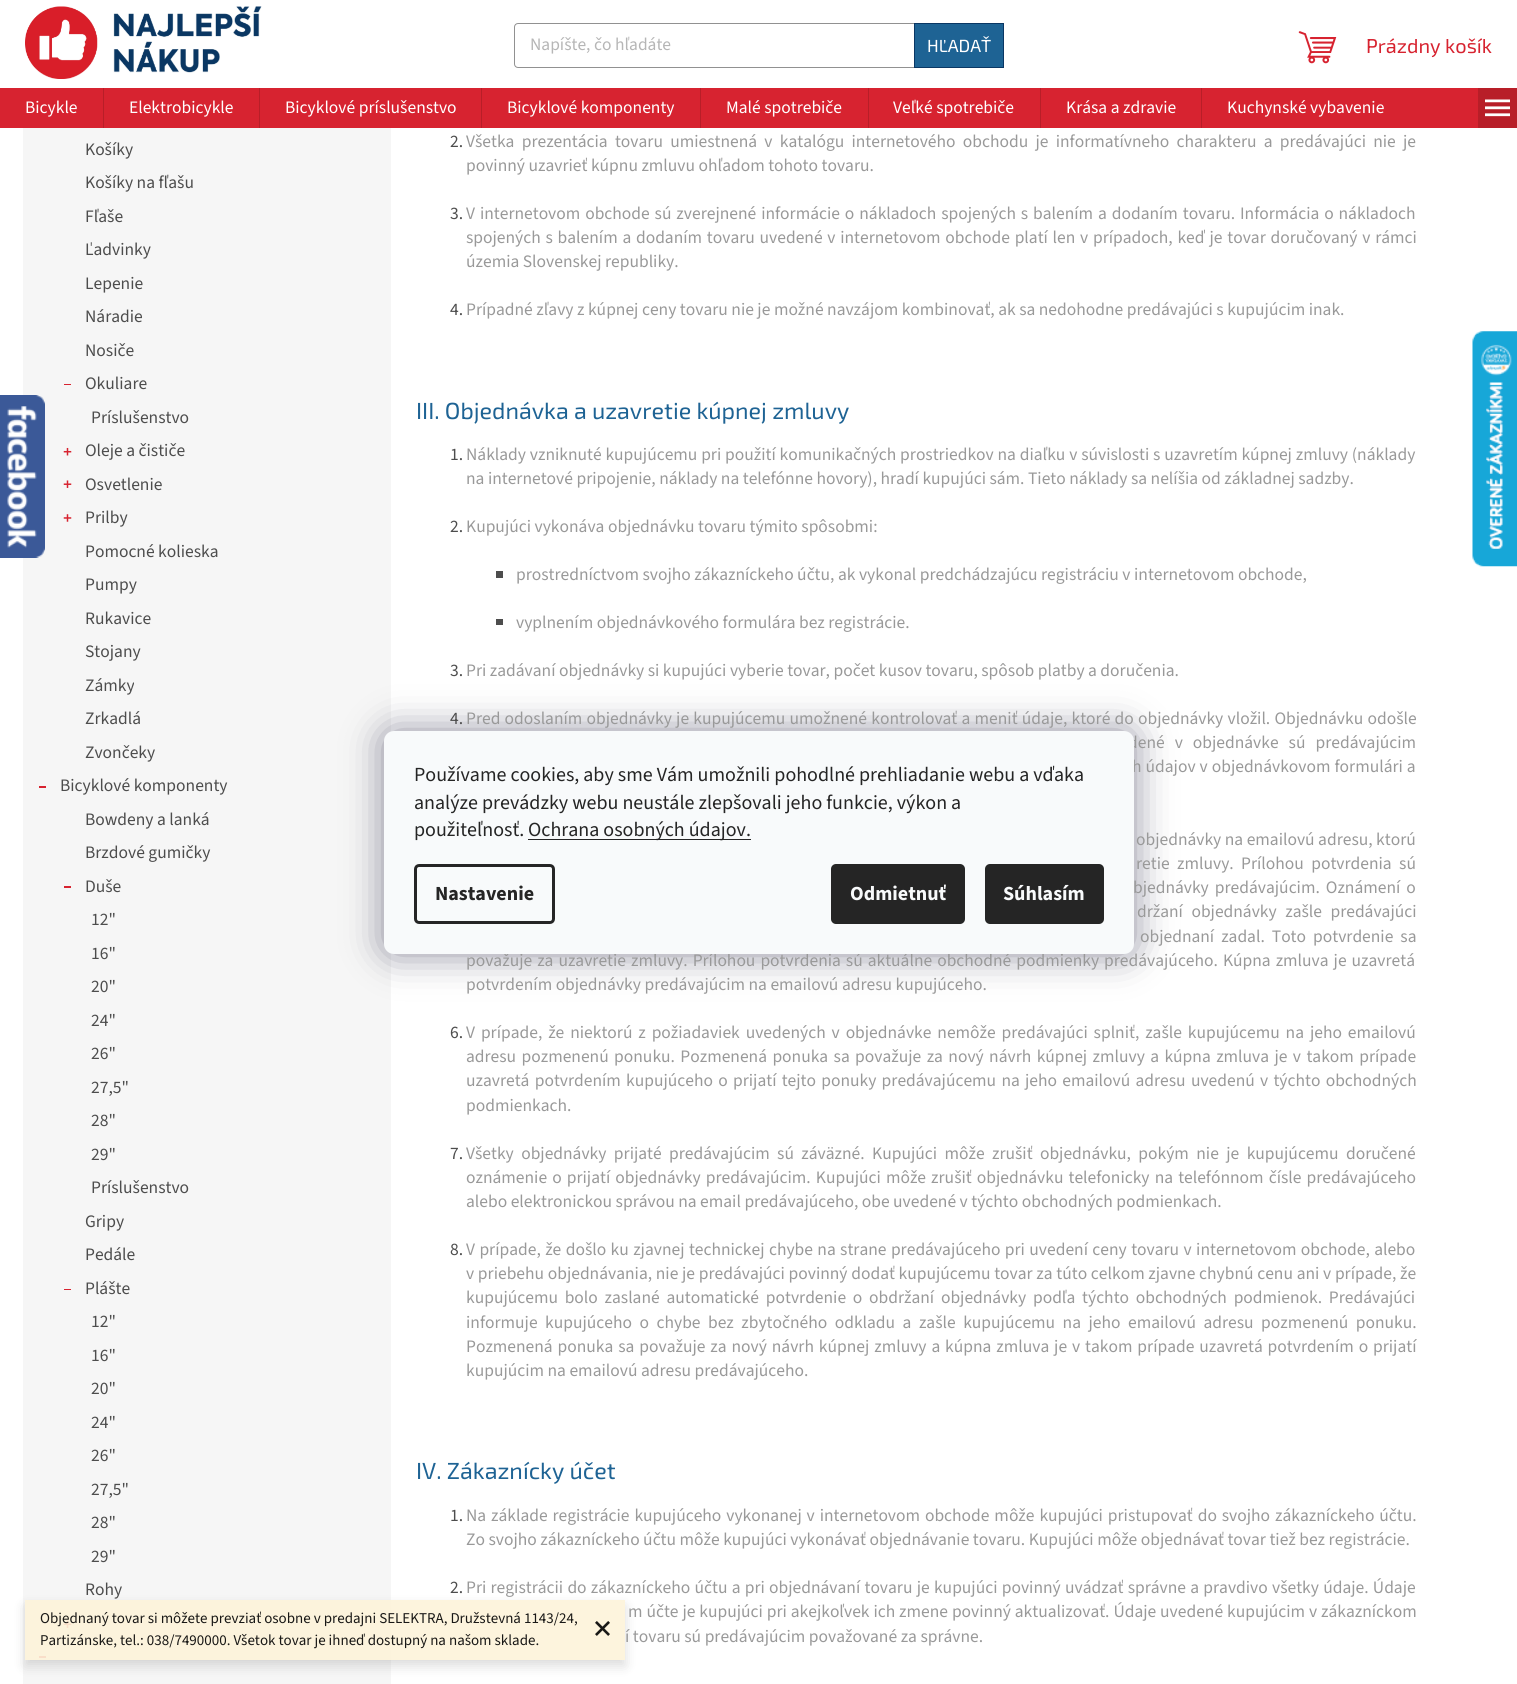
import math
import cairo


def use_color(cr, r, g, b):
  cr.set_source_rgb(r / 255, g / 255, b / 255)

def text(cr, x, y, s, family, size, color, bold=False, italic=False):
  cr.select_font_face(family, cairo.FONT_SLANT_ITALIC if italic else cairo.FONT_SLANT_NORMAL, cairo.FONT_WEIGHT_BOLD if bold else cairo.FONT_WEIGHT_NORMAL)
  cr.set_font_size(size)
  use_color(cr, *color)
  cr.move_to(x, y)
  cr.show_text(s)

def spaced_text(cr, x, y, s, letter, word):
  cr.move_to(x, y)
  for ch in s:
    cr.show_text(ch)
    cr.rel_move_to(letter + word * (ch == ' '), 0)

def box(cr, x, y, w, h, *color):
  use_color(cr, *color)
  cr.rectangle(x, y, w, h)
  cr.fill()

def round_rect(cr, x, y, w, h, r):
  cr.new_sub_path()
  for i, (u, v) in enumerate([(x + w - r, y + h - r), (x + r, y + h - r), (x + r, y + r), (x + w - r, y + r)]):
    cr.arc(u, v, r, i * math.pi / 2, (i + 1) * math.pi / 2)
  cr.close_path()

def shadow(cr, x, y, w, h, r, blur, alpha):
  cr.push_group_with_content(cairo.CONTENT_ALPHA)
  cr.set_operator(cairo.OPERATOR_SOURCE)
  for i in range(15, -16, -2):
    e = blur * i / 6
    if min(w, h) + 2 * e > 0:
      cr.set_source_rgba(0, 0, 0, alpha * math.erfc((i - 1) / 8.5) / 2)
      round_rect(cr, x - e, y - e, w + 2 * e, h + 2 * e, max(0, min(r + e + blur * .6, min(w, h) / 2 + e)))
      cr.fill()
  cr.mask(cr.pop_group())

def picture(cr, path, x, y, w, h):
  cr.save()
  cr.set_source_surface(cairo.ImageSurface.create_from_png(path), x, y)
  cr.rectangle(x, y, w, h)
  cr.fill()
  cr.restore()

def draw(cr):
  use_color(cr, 255, 255, 255)
  cr.paint()
  box(cr, 23, 128, 368, 1556, 246, 246, 246)
  picture(cr, "img_01.png", 0, 395, 45, 163)
  picture(cr, "img_02.png", 25, 6, 237, 73)
  round_rect(cr, 514.5, 23.5, 489, 44, 3.5)
  use_color(cr, 145, 145, 145)
  cr.set_line_width(1)
  cr.stroke()
  use_color(cr, 30, 99, 148)
  cr.rectangle(914.5, 23.5, 89, 44)
  cr.fill_preserve()
  use_color(cr, 10, 55, 100)
  cr.stroke()
  picture(cr, "img_03.png", 1298, 31, 39, 33)
  box(cr, 0, 88, 1478, 40, 215, 35, 48)
  box(cr, 103, 88, 1, 40, 184, 30, 40)
  box(cr, 259, 88, 1, 40, 184, 30, 40)
  box(cr, 481, 88, 1, 40, 184, 30, 40)
  box(cr, 700, 88, 1, 40, 184, 30, 40)
  box(cr, 868, 88, 1, 40, 184, 30, 40)
  box(cr, 1040, 88, 1, 40, 184, 30, 40)
  box(cr, 1201, 88, 1, 40, 184, 30, 40)
  box(cr, 1478, 88, 39, 40, 184, 30, 40)
  picture(cr, "img_04.png", 1485, 99, 25, 18)
  box(cr, 64, 384, 7, 1, 215, 35, 48)
  picture(cr, "img_05.png", 63, 447, 9, 9)
  picture(cr, "img_06.png", 63, 480, 9, 8)
  picture(cr, "img_07.png", 63, 514, 9, 8)
  box(cr, 39, 786, 7, 2, 215, 35, 48)
  box(cr, 64, 886, 7, 2, 215, 35, 48)
  box(cr, 64, 1289, 7, 1, 215, 35, 48)
  picture(cr, "img_06.png", 63, 1620, 9, 8)
  box(cr, 39, 1656, 7, 2, 215, 35, 48)
  box(cr, 496, 571, 7, 7, 77, 77, 77)
  box(cr, 496, 619, 7, 6, 77, 77, 77)
  cr.save()
  cr.set_fill_rule(cairo.FILL_RULE_EVEN_ODD)
  cr.new_path()
  cr.move_to(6, 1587)
  cr.line_to(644, 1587)
  cr.line_to(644, 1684)
  cr.line_to(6, 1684)
  cr.close_path()
  cr.move_to(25, 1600)
  cr.line_to(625, 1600)
  cr.line_to(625, 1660)
  cr.line_to(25, 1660)
  cr.close_path()
  cr.clip()
  use_color(cr, 0, 0, 0)
  shadow(cr, 25, 1606, 600, 60, 0, 6, 0.14)
  cr.restore()
  cr.set_source_rgba(0.992, 0.953, 0.855, 0.9)
  cr.rectangle(25, 1600, 600, 60)
  cr.fill()
  picture(cr, "img_08.png", 595, 1621, 15, 15)
  picture(cr, "img_09.png", 1472, 331, 45, 236)
  use_color(cr, 27, 25, 57)
  shadow(cr, 384, 731, 750, 223, 10, 19, 0.5)
  text(cr, 530, 50, "Napíšte, čo hľadáte", "Source Sans 3", 17.5, (182, 182, 182))
  text(cr, 927, 52, "HĽADAŤ", "Exo 2", 17.5, (255, 255, 255))
  text(cr, 1366, 53, "Prázdny košík", "Exo 2", 20, (215, 35, 48))
  text(cr, 25, 113, "Bicykle", "Source Sans 3", 17.5, (255, 255, 255))
  text(cr, 129, 113, "Elektrobicykle", "Source Sans 3", 17.5, (255, 255, 255))
  text(cr, 285, 113, "Bicyklové príslušenstvo", "Source Sans 3", 17.5, (255, 255, 255))
  text(cr, 507, 113, "Bicyklové komponenty", "Source Sans 3", 17.5, (255, 255, 255))
  text(cr, 726, 113, "Malé spotrebiče", "Source Sans 3", 17.5, (255, 255, 255))
  text(cr, 893, 113, "Veľké spotrebiče", "Source Sans 3", 17.5, (255, 255, 255))
  text(cr, 1066, 113, "Krása a zdravie", "Source Sans 3", 17.5, (255, 255, 255))
  text(cr, 1227, 113, "Kuchynské vybavenie", "Source Sans 3", 17.5, (255, 255, 255))
  text(cr, 85, 155, "Košíky", "Source Sans 3", 17.5, (77, 77, 77))
  text(cr, 85, 188, "Košíky na fľašu", "Source Sans 3", 17.5, (77, 77, 77))
  text(cr, 85, 222, "Fľaše", "Source Sans 3", 17.5, (77, 77, 77))
  text(cr, 85, 255, "Ľadvinky", "Source Sans 3", 17.5, (77, 77, 77))
  text(cr, 85, 289, "Lepenie", "Source Sans 3", 17.5, (77, 77, 77))
  text(cr, 85, 322, "Náradie", "Source Sans 3", 17.5, (77, 77, 77))
  text(cr, 85, 356, "Nosiče", "Source Sans 3", 17.5, (77, 77, 77))
  text(cr, 85, 389, "Okuliare", "Source Sans 3", 17.5, (77, 77, 77))
  text(cr, 91, 423, "Príslušenstvo", "Source Sans 3", 17.5, (77, 77, 77))
  text(cr, 85, 456, "Oleje a čističe", "Source Sans 3", 17.5, (77, 77, 77))
  text(cr, 85, 490, "Osvetlenie", "Source Sans 3", 17.5, (77, 77, 77))
  text(cr, 85, 523, "Prilby", "Source Sans 3", 17.5, (77, 77, 77))
  text(cr, 85, 557, "Pomocné kolieska", "Source Sans 3", 17.5, (77, 77, 77))
  text(cr, 85, 590, "Pumpy", "Source Sans 3", 17.5, (77, 77, 77))
  text(cr, 85, 624, "Rukavice", "Source Sans 3", 17.5, (77, 77, 77))
  text(cr, 85, 657, "Stojany", "Source Sans 3", 17.5, (77, 77, 77))
  text(cr, 85, 691, "Zámky", "Source Sans 3", 17.5, (77, 77, 77))
  text(cr, 85, 724, "Zrkadlá", "Source Sans 3", 17.5, (77, 77, 77))
  text(cr, 85, 758, "Zvončeky", "Source Sans 3", 17.5, (77, 77, 77))
  text(cr, 60, 791, "Bicyklové komponenty", "Source Sans 3", 17.5, (77, 77, 77))
  text(cr, 85, 825, "Bowdeny a lanká", "Source Sans 3", 17.5, (77, 77, 77))
  text(cr, 85, 858, "Brzdové gumičky", "Source Sans 3", 17.5, (77, 77, 77))
  text(cr, 85, 892, "Duše", "Source Sans 3", 17.5, (77, 77, 77))
  text(cr, 91, 925, "12\"", "Source Sans 3", 17.5, (77, 77, 77))
  text(cr, 91, 959, "16\"", "Source Sans 3", 17.5, (77, 77, 77))
  text(cr, 91, 992, "20\"", "Source Sans 3", 17.5, (77, 77, 77))
  text(cr, 91, 1026, "24\"", "Source Sans 3", 17.5, (77, 77, 77))
  text(cr, 91, 1059, "26\"", "Source Sans 3", 17.5, (77, 77, 77))
  text(cr, 91, 1093, "27,5\"", "Source Sans 3", 17.5, (77, 77, 77))
  text(cr, 91, 1126, "28\"", "Source Sans 3", 17.5, (77, 77, 77))
  text(cr, 91, 1160, "29\"", "Source Sans 3", 17.5, (77, 77, 77))
  text(cr, 91, 1193, "Príslušenstvo", "Source Sans 3", 17.5, (77, 77, 77))
  text(cr, 85, 1227, "Gripy", "Source Sans 3", 17.5, (77, 77, 77))
  text(cr, 85, 1260, "Pedále", "Source Sans 3", 17.5, (77, 77, 77))
  text(cr, 85, 1294, "Plášte", "Source Sans 3", 17.5, (77, 77, 77))
  text(cr, 91, 1327, "12\"", "Source Sans 3", 17.5, (77, 77, 77))
  text(cr, 91, 1361, "16\"", "Source Sans 3", 17.5, (77, 77, 77))
  text(cr, 91, 1394, "20\"", "Source Sans 3", 17.5, (77, 77, 77))
  text(cr, 91, 1428, "24\"", "Source Sans 3", 17.5, (77, 77, 77))
  text(cr, 91, 1461, "26\"", "Source Sans 3", 17.5, (77, 77, 77))
  text(cr, 91, 1495, "27,5\"", "Source Sans 3", 17.5, (77, 77, 77))
  text(cr, 91, 1528, "28\"", "Source Sans 3", 17.5, (77, 77, 77))
  text(cr, 91, 1562, "29\"", "Source Sans 3", 17.5, (77, 77, 77))
  text(cr, 85, 1595, "Rohy", "Source Sans 3", 17.5, (77, 77, 77))
  text(cr, 450, 147, "2.", "Source Sans 3", 17.5, (77, 77, 77))
  use_color(cr, 153, 153, 153)
  spaced_text(cr, 466, 147, "Všetka prezentácia tovaru umiestnená v katalógu internetového obchodu je informatívneho charakteru a predávajúci nie je", 0, 3.75)
  text(cr, 466, 171, "povinný uzavrieť kúpnu zmluvu ohľadom tohoto tovaru.", "Source Sans 3", 17.5, (153, 153, 153))
  text(cr, 450, 219, "3.", "Source Sans 3", 17.5, (77, 77, 77))
  use_color(cr, 153, 153, 153)
  spaced_text(cr, 466, 219, "V internetovom obchode sú zverejnené informácie o nákladoch spojených s balením a dodaním tovaru. Informácia o nákladoch", 0, 1.4)
  spaced_text(cr, 466, 243, "spojených s balením a dodaním tovaru uvedené v internetovom obchode platí len v prípadoch, keď je tovar doručovaný v rámci", 0, 1.25)
  text(cr, 466, 267, "územia Slovenskej republiky.", "Source Sans 3", 17.5, (153, 153, 153))
  text(cr, 450, 315, "4.", "Source Sans 3", 17.5, (77, 77, 77))
  text(cr, 466, 315, "Prípadné zľavy z kúpnej ceny tovaru nie je možné navzájom kombinovať, ak sa nedohodne predávajúci s kupujúcim inak.", "Source Sans 3", 17.5, (153, 153, 153))
  text(cr, 416, 419, "III. Objednávka a uzavretie kúpnej zmluvy", "Exo 2", 23.3, (30, 99, 148))
  text(cr, 450, 460, "1.", "Source Sans 3", 17.5, (77, 77, 77))
  use_color(cr, 153, 153, 153)
  spaced_text(cr, 466, 460, "Náklady vzniknuté kupujúcemu pri použití komunikačných prostriedkov na diaľku v súvislosti s uzavretím kúpnej zmluvy (náklady", 0, 0.3)
  text(cr, 466, 484, "na internetové pripojenie, náklady na telefónne hovory), hradí kupujúci sám. Tieto náklady sa nelíšia od základnej sadzby.", "Source Sans 3", 17.5, (153, 153, 153))
  text(cr, 450, 532, "2.", "Source Sans 3", 17.5, (77, 77, 77))
  text(cr, 466, 532, "Kupujúci vykonáva objednávku tovaru týmito spôsobmi:", "Source Sans 3", 17.5, (153, 153, 153))
  text(cr, 516, 580, "prostredníctvom svojho zákazníckeho účtu, ak vykonal predchádzajúcu registráciu v internetovom obchode,", "Source Sans 3", 17.5, (153, 153, 153))
  text(cr, 516, 628, "vyplnením objednávkového formulára bez registrácie.", "Source Sans 3", 17.5, (153, 153, 153))
  text(cr, 450, 676, "3.", "Source Sans 3", 17.5, (77, 77, 77))
  text(cr, 466, 676, "Pri zadávaní objednávky si kupujúci vyberie tovar, počet kusov tovaru, spôsob platby a doručenia.", "Source Sans 3", 17.5, (153, 153, 153))
  text(cr, 450, 724, "4.", "Source Sans 3", 17.5, (77, 77, 77))
  use_color(cr, 153, 153, 153)
  spaced_text(cr, 466, 724, "Pred odoslaním objednávky je kupujúcemu umožnené kontrolovať a meniť údaje, ktoré do objednávky vložil. Objednávku odošle", 0, 0.75)
  spaced_text(cr, 1128, 748, "dené v objednávke sú predávajúcim", 0, 6.5)
  spaced_text(cr, 1132, 772, "h údajov v objednávkovom formulári a", 0, 0.5)
  text(cr, 1136, 845, "objednávky na emailovú adresu, ktorú", "Source Sans 3", 17.5, (153, 153, 153))
  spaced_text(cr, 1136, 869, "retie zmluvy. Prílohou potvrdenia sú", 0, 3.9)
  spaced_text(cr, 1133, 893, "bjednávky predávajúcim. Oznámení o", 0, 2.5)
  spaced_text(cr, 1137, 917, "držaní objednávky zašle predávajúci", 0, 5)
  spaced_text(cr, 1140, 942, "objednaní zadal. Toto potvrdenie sa", 0, 3.5)
  spaced_text(cr, 466, 966, "považuje za uzavretie zmluvy. Prílohou potvrdenia sú aktuálne obchodné podmienky predávajúceho. Kúpna zmluva je uzavretá", 0, 1.5)
  text(cr, 466, 990, "potvrdením objednávky predávajúcim na emailovú adresu kupujúceho.", "Source Sans 3", 17.5, (153, 153, 153))
  text(cr, 450, 1038, "6.", "Source Sans 3", 17.5, (77, 77, 77))
  use_color(cr, 153, 153, 153)
  spaced_text(cr, 466, 1038, "V prípade, že niektorú z požiadaviek uvedených v objednávke nemôže predávajúci splniť, zašle kupujúcemu na jeho emailovú", 0, 2.4)
  spaced_text(cr, 466, 1062, "adresu pozmenenú ponuku. Pozmenená ponuka sa považuje za nový návrh kúpnej zmluvy a kúpna zmluva je v takom prípade", 0, 1.9)
  spaced_text(cr, 466, 1086, "uzavretá potvrdením kupujúceho o prijatí tejto ponuky predávajúcemu na jeho emailovú adresu uvedenú v týchto obchodných", 0, 1.75)
  text(cr, 466, 1111, "podmienkach.", "Source Sans 3", 17.5, (153, 153, 153))
  text(cr, 450, 1159, "7.", "Source Sans 3", 17.5, (77, 77, 77))
  use_color(cr, 153, 153, 153)
  spaced_text(cr, 466, 1159, "Všetky objednávky prijaté predávajúcim sú záväzné. Kupujúci môže zrušiť objednávku, pokým nie je kupujúcemu doručené", 0, 3.9)
  spaced_text(cr, 466, 1183, "oznámenie o prijatí objednávky predávajúcim. Kupujúci môže zrušiť objednávku telefonicky na telefónnom čísle predávajúceho", 0, 1.6)
  text(cr, 466, 1207, "alebo elektronickou správou na email predávajúceho, obe uvedené v týchto obchodných podmienkach.", "Source Sans 3", 17.5, (153, 153, 153))
  text(cr, 450, 1255, "8.", "Source Sans 3", 17.5, (77, 77, 77))
  use_color(cr, 153, 153, 153)
  spaced_text(cr, 466, 1255, "V prípade, že došlo ku zjavnej technickej chybe na strane predávajúceho pri uvedení ceny tovaru v internetovom obchode, alebo", 0, 0.9)
  spaced_text(cr, 466, 1279, "v priebehu objednávania, nie je predávajúci povinný dodať kupujúcemu tovar za túto celkom zjavne chybnú cenu ani v prípade, že", 0, 0.2)
  spaced_text(cr, 466, 1303, "kupujúcemu bolo zaslané automatické potvrdenie o obdržaní objednávky podľa týchto obchodných podmienok. Predávajúci", 0, 3.25)
  spaced_text(cr, 466, 1328, "informuje kupujúceho o chybe bez zbytočného odkladu a zašle kupujúcemu na jeho emailovú adresu pozmenenú ponuku.", 0, 4)
  spaced_text(cr, 466, 1352, "Pozmenená ponuka sa považuje za nový návrh kúpnej zmluvy a kúpna zmluva je v takom prípade uzavretá potvrdením o prijatí", 0, 1.4)
  text(cr, 466, 1376, "kupujúcim na emailovú adresu predávajúceho.", "Source Sans 3", 17.5, (153, 153, 153))
  text(cr, 416, 1479, "IV. Zákaznícky účet", "Exo 2", 23.3, (30, 99, 148))
  text(cr, 450, 1521, "1.", "Source Sans 3", 17.5, (77, 77, 77))
  use_color(cr, 153, 153, 153)
  spaced_text(cr, 466, 1521, "Na základe registrácie kupujúceho vykonanej v internetovom obchode môže kupujúci pristupovať do svojho zákazníckeho účtu.", 0, 1.4)
  text(cr, 466, 1545, "Zo svojho zákazníckeho účtu môže kupujúci vykonávať objednávanie tovaru. Kupujúci môže objednávať tovar tiež bez registrácie.", "Source Sans 3", 17.5, (153, 153, 153))
  text(cr, 450, 1593, "2.", "Source Sans 3", 17.5, (77, 77, 77))
  use_color(cr, 153, 153, 153)
  spaced_text(cr, 466, 1593, "Pri registrácii do zákazníckeho účtu a pri objednávaní tovaru je kupujúci povinný uvádzať správne a pravdivo všetky údaje. Údaje", 0, 0.75)
  spaced_text(cr, 628, 1617, "m účte je kupujúci pri akejkoľvek ich zmene povinný aktualizovať. Údaje uvedené kupujúcim v zákazníckom", 0, 0.4)
  text(cr, 625, 1642, "í tovaru sú predávajúcim považované za správne.", "Source Sans 3", 17.5, (153, 153, 153))
  text(cr, 40, 1623, "Objednaný tovar si môžete prevziať osobne v predajni SELEKTRA, Družstevná 1143/24,", "Source Sans 3", 15, (25, 24, 22))
  text(cr, 40, 1645, "Partizánske, tel.: 038/7490000. Všetok tovar je ihneď dostupný na našom sklade.", "Source Sans 3", 15, (25, 24, 22))
  use_color(cr, 248, 250, 251)
  round_rect(cr, 384, 731, 750, 223, 10)
  cr.fill()
  text(cr, 414, 781, "Používame cookies, aby sme Vám umožnili pohodlné prehliadanie webu a vďaka", "Source Sans 3", 20, (37, 37, 37))
  text(cr, 414, 809, "analýze prevádzky webu neustále zlepšovali jeho funkcie, výkon a", "Source Sans 3", 20, (37, 37, 37))
  text(cr, 414, 836, "použiteľnosť.", "Source Sans 3", 20, (37, 37, 37))
  box(cr, 528, 839, 223, 1, 37, 37, 37)
  text(cr, 528, 836, "Ochrana osobných údajov.", "Source Sans 3", 20, (37, 37, 37))
  round_rect(cr, 415.5, 865.5, 138, 57, 3.5)
  cr.set_line_width(3)
  cr.stroke()
  text(cr, 435, 900, "Nastavenie", "Source Sans 3", 20, (37, 37, 37), bold=True)
  round_rect(cr, 831, 864, 134, 60, 5)
  cr.fill()
  text(cr, 850, 900, "Odmietnuť", "Source Sans 3", 20, (248, 250, 251), bold=True)
  use_color(cr, 37, 37, 37)
  round_rect(cr, 985, 864, 119, 60, 5)
  cr.fill()
  text(cr, 1003, 900, "Súhlasím", "Source Sans 3", 20, (248, 250, 251), bold=True)


surface = cairo.ImageSurface(cairo.FORMAT_RGB24, 1517, 1684)
cr = cairo.Context(surface)
options = cairo.FontOptions()
options.set_hint_metrics(cairo.HINT_METRICS_OFF)
options.set_hint_style(cairo.HINT_STYLE_NONE)
cr.set_font_options(options)
cr.set_miter_limit(4)
draw(cr)
surface.write_to_png("out.png")
